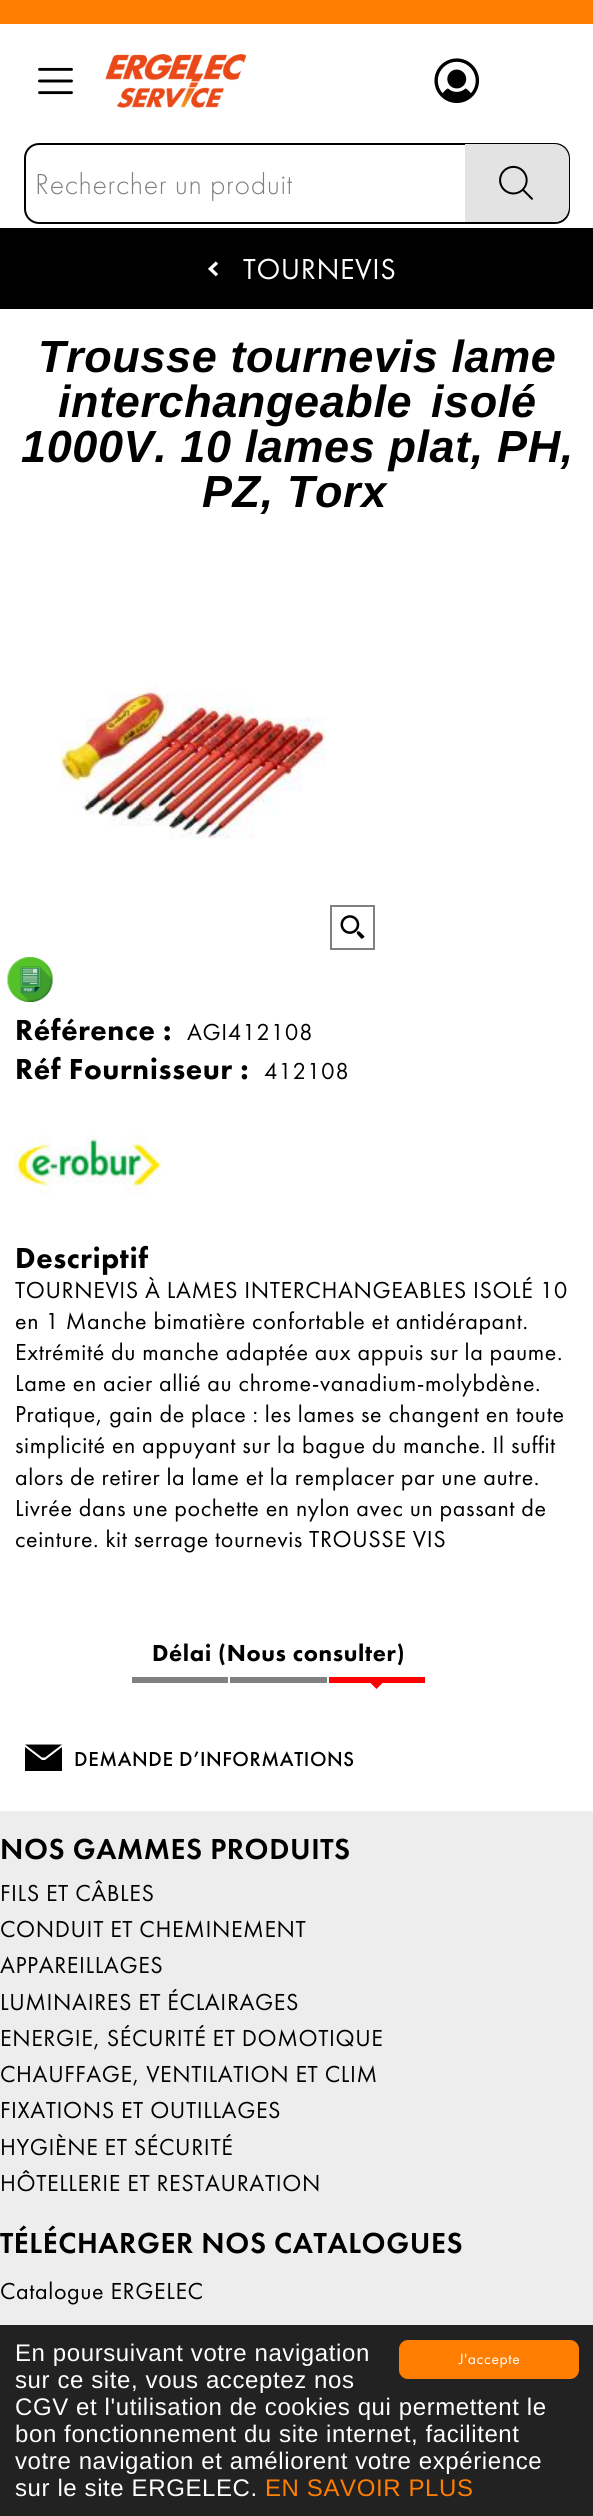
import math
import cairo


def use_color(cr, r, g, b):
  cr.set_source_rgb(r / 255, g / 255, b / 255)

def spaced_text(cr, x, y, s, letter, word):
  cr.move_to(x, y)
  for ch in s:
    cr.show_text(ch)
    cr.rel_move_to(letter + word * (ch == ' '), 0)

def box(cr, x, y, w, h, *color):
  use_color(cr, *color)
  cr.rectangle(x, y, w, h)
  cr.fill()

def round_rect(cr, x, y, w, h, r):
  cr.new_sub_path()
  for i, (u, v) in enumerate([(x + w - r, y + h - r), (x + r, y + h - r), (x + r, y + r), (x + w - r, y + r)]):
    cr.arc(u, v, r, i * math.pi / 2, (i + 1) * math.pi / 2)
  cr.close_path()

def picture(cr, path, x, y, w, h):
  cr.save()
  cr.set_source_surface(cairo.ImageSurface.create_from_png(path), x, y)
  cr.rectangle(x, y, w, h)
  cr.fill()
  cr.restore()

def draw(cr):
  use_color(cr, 255, 255, 255)
  cr.paint()
  box(cr, 0, 0, 593, 24, 255, 125, 1)
  picture(cr, "img_01.png", 38, 67, 35, 28)
  picture(cr, "img_02.png", 105, 54, 141, 54)
  picture(cr, "img_03.png", 434, 58, 46, 45)
  round_rect(cr, 25, 144, 544, 79, 14)
  use_color(cr, 0, 0, 0)
  cr.stroke()
  use_color(cr, 227, 227, 227)
  cr.new_path()
  cr.move_to(465, 144)
  cr.line_to(554, 144)
  cr.curve_to(562.5, 144, 569, 150.5, 569, 159)
  cr.line_to(569, 207)
  cr.curve_to(569, 215.5, 562.5, 222, 554, 222)
  cr.line_to(465, 222)
  cr.close_path()
  cr.fill()
  picture(cr, "img_04.png", 499, 165, 34, 35)
  box(cr, 0, 228, 593, 81, 0, 0, 0)
  picture(cr, "img_05.png", 207, 261, 12, 16)
  picture(cr, "img_06.png", 60, 682, 266, 157)
  cr.rectangle(331, 906, 43, 43)
  use_color(cr, 128, 128, 128)
  cr.stroke()
  picture(cr, "img_07.png", 340, 915, 25, 24)
  picture(cr, "img_08.png", 7, 957, 46, 45)
  picture(cr, "img_09.png", 15, 1135, 148, 61)
  box(cr, 132, 1677, 96, 6, 128, 128, 128)
  box(cr, 230, 1677, 97, 6, 128, 128, 128)
  box(cr, 329, 1677, 96, 6, 255, 0, 0)
  cr.new_path()
  cr.move_to(370.5, 1683)
  cr.line_to(382.5, 1683)
  cr.line_to(376.5, 1689)
  cr.close_path()
  cr.fill()
  use_color(cr, 0, 0, 0)
  cr.new_path()
  cr.move_to(42, 1757.5)
  cr.line_to(25, 1744.5)
  cr.line_to(62, 1744.5)
  cr.line_to(45, 1757.5)
  cr.close_path()
  cr.move_to(25, 1771)
  cr.line_to(25, 1747)
  cr.line_to(42, 1760)
  cr.line_to(45, 1760)
  cr.line_to(62, 1747)
  cr.line_to(62, 1771)
  cr.close_path()
  cr.fill()
  box(cr, 0, 1811, 593, 514, 237, 237, 237)
  box(cr, 0, 2325, 593, 191, 34, 34, 34)
  use_color(cr, 255, 125, 1)
  round_rect(cr, 399, 2340, 180, 39, 9)
  cr.fill()
  cr.select_font_face("Futura PT Light")
  cr.set_font_size(30)
  use_color(cr, 128, 128, 128)
  spaced_text(cr, 35, 194, "Rechercher un produit", 0.6, 0)
  cr.select_font_face("Futura PT")
  use_color(cr, 255, 255, 255)
  spaced_text(cr, 243, 279, "TOURNEVIS", 0.6, 0)
  cr.select_font_face("Liberation Sans", cairo.FONT_SLANT_ITALIC, cairo.FONT_WEIGHT_BOLD)
  cr.set_font_size(45)
  use_color(cr, 0, 0, 0)
  spaced_text(cr, 38, 372, "Trousse tournevis lame", 0.6, 0)
  spaced_text(cr, 58, 417, "interchangeable", 0.6, 0)
  spaced_text(cr, 431, 417, "isolé", 0.6, 0)
  spaced_text(cr, 21, 462, "1000V. 10 lames plat, PH,", 0.6, 0)
  spaced_text(cr, 202, 507, "PZ, Torx", 0.6, 0)
  cr.select_font_face("Futura PT Black")
  cr.set_font_size(30)
  spaced_text(cr, 15, 1040, "Référence :", 0.6, 0)
  cr.select_font_face("Futura PT")
  cr.set_font_size(24)
  spaced_text(cr, 187, 1040, "AGI412108", 0.6, 0)
  cr.select_font_face("Futura PT Black")
  cr.set_font_size(30)
  spaced_text(cr, 15, 1079, "Réf Fournisseur :", 0.6, 0)
  cr.select_font_face("Futura PT")
  cr.set_font_size(24)
  spaced_text(cr, 264, 1079, "412108", 0.6, 0)
  cr.select_font_face("Futura PT Black")
  cr.set_font_size(30)
  spaced_text(cr, 15, 1268, "Descriptif", 0.6, 0)
  cr.select_font_face("Futura PT")
  cr.set_font_size(24)
  spaced_text(cr, 15, 1298, "TOURNEVIS À LAMES INTERCHANGEABLES ISOLÉ 10", 0.6, 0)
  spaced_text(cr, 15, 1329, "en 1 Manche bimatière confortable et antidérapant.", 0.6, 0)
  spaced_text(cr, 15, 1360, "Extrémité du manche adaptée aux appuis sur la paume.", 0.6, 0)
  spaced_text(cr, 15, 1391, "Lame en acier allié au chrome-vanadium-molybdène.", 0.6, 0)
  spaced_text(cr, 15, 1422, "Pratique, gain de place : les lames se changent en toute", 0.6, 0)
  spaced_text(cr, 15, 1453, "simplicité en appuyant sur la bague du manche. Il suffit", 0.6, 0)
  spaced_text(cr, 15, 1485, "alors de retirer la lame et la remplacer par une autre.", 0.6, 0)
  spaced_text(cr, 15, 1516, "Livrée dans une pochette en nylon avec un passant de", 0.6, 0)
  spaced_text(cr, 15, 1547, "ceinture. kit serrage tournevis TROUSSE VIS", 0.6, 0)
  cr.select_font_face("Futura PT Black")
  spaced_text(cr, 152, 1661, "Délai (Nous consulter)", 0.6, 0)
  cr.select_font_face("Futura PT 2 Medium")
  cr.set_font_size(21)
  spaced_text(cr, 74, 1766, "DEMANDE D’INFORMATIONS", 0.6, 0)
  cr.select_font_face("Futura PT Medium")
  cr.set_font_size(30)
  spaced_text(cr, 0, 1859, "NOS GAMMES PRODUITS", 0.6, 0)
  cr.select_font_face("Futura PT")
  cr.set_font_size(24)
  spaced_text(cr, 0, 1901, "FILS ET CÂBLES", 0.6, 0)
  spaced_text(cr, 0, 1937, "CONDUIT ET CHEMINEMENT", 0.6, 0)
  spaced_text(cr, 0, 1973, "APPAREILLAGES", 0.6, 0)
  spaced_text(cr, 0, 2010, "LUMINAIRES ET ÉCLAIRAGES", 0.6, 0)
  spaced_text(cr, 0, 2046, "ENERGIE, SÉCURITÉ ET DOMOTIQUE", 0.6, 0)
  spaced_text(cr, 0, 2082, "CHAUFFAGE, VENTILATION ET CLIM", 0.6, 0)
  spaced_text(cr, 0, 2118, "FIXATIONS ET OUTILLAGES", 0.6, 0)
  spaced_text(cr, 0, 2155, "HYGIÈNE ET SÉCURITÉ", 0.6, 0)
  spaced_text(cr, 0, 2191, "HÔTELLERIE ET RESTAURATION", 0.6, 0)
  cr.select_font_face("Futura PT Medium")
  cr.set_font_size(30)
  spaced_text(cr, 0, 2253, "TÉLÉCHARGER NOS CATALOGUES", 0.6, 0)
  cr.select_font_face("Futura PT")
  cr.set_font_size(24)
  spaced_text(cr, 0, 2299, "Catalogue ERGELEC", 0.6, 0)
  cr.select_font_face("Liberation Sans")
  use_color(cr, 255, 255, 255)
  spaced_text(cr, 15, 2361, "En poursuivant votre navigation", 0.6, 0)
  spaced_text(cr, 15, 2388, "sur ce site, vous acceptez nos", 0.6, 0)
  spaced_text(cr, 15, 2415, "CGV et l'utilisation de cookies qui permettent le", 0.6, 0)
  spaced_text(cr, 15, 2442, "bon fonctionnement du site internet, facilitent", 0.6, 0)
  spaced_text(cr, 15, 2469, "votre navigation et améliorent votre expérience", 0.6, 0)
  spaced_text(cr, 15, 2496, "sur le site ERGELEC.", 0.6, 0)
  use_color(cr, 255, 125, 1)
  spaced_text(cr, 265, 2496, "EN SAVOIR PLUS", 0.6, 0)
  cr.select_font_face("Futura PT")
  cr.set_font_size(15.5)
  use_color(cr, 255, 255, 255)
  spaced_text(cr, 459, 2364, "J'accepte", 0.6, 0)


surface = cairo.ImageSurface(cairo.FORMAT_RGB24, 593, 2516)
cr = cairo.Context(surface)
options = cairo.FontOptions()
options.set_hint_metrics(cairo.HINT_METRICS_OFF)
options.set_hint_style(cairo.HINT_STYLE_NONE)
cr.set_font_options(options)
cr.set_miter_limit(4)
draw(cr)
surface.write_to_png("out.png")
